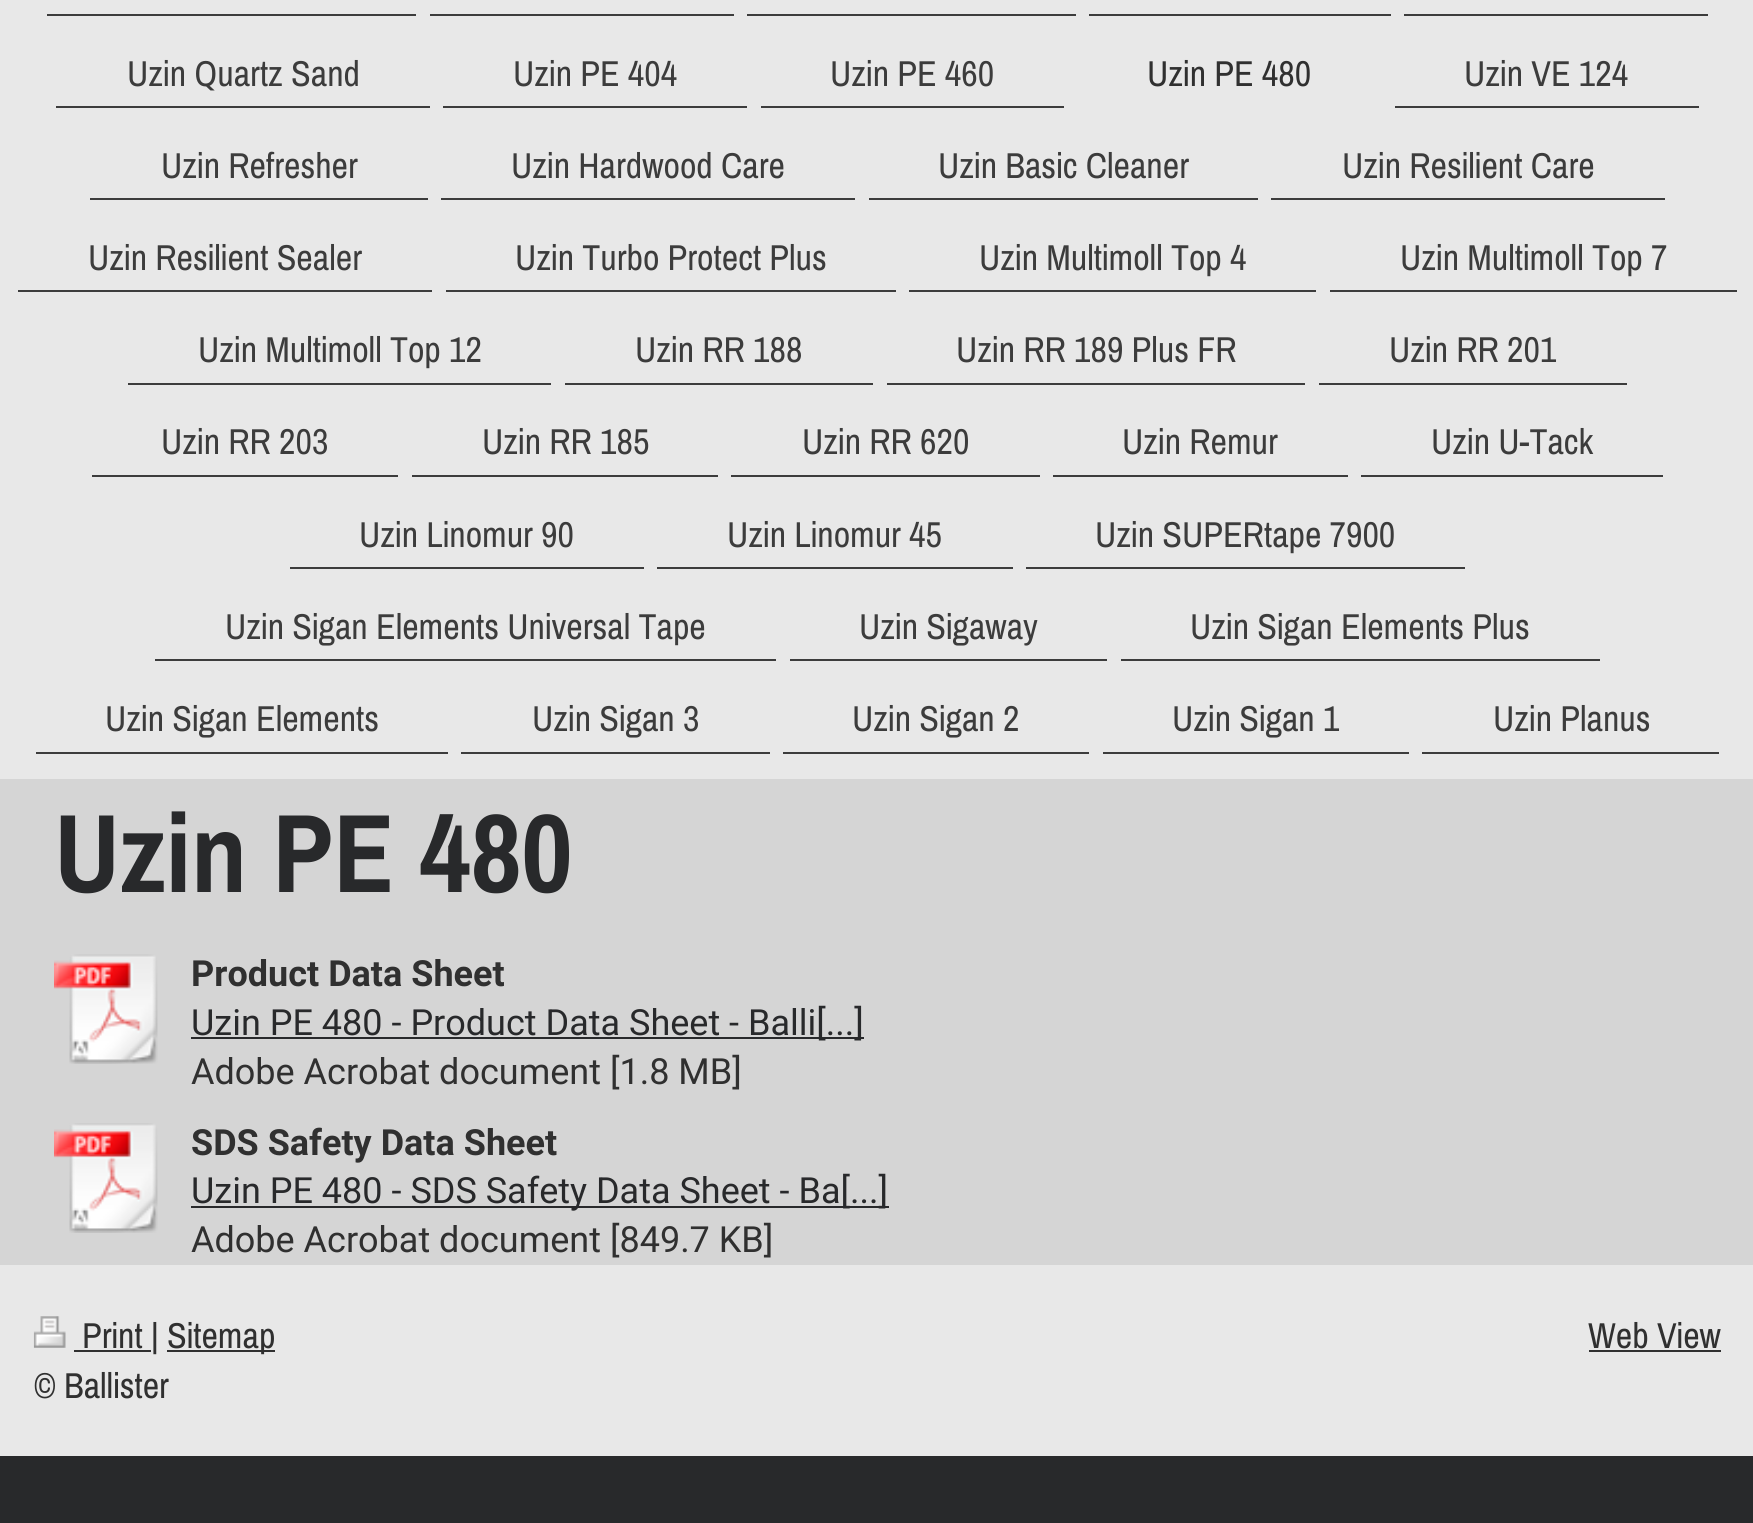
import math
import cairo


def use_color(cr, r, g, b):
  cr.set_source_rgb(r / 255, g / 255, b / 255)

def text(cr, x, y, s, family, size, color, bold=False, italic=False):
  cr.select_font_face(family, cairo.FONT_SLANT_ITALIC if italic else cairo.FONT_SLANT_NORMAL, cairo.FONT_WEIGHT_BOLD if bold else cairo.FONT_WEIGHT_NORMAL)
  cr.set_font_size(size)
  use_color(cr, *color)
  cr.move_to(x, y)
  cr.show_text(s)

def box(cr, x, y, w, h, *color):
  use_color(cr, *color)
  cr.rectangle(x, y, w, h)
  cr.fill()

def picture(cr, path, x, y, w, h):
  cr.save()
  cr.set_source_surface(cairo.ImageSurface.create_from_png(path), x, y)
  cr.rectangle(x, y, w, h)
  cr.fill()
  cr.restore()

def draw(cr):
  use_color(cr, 40, 41, 43)
  cr.paint()
  box(cr, 0, 0, 1753, 779, 232, 232, 232)
  box(cr, 47, 14, 369, 2, 60, 60, 60)
  box(cr, 430, 14, 304, 2, 60, 60, 60)
  box(cr, 747, 14, 329, 2, 60, 60, 60)
  box(cr, 1089, 14, 302, 2, 60, 60, 60)
  box(cr, 1404, 14, 304, 2, 60, 60, 60)
  box(cr, 56, 106, 374, 2, 60, 60, 60)
  box(cr, 443, 106, 304, 2, 60, 60, 60)
  box(cr, 761, 106, 303, 2, 60, 60, 60)
  box(cr, 1395, 106, 304, 2, 60, 60, 60)
  box(cr, 90, 198, 338, 2, 60, 60, 60)
  box(cr, 441, 198, 414, 2, 60, 60, 60)
  box(cr, 869, 198, 389, 2, 60, 60, 60)
  box(cr, 1271, 198, 394, 2, 60, 60, 60)
  box(cr, 18, 290, 414, 2, 60, 60, 60)
  box(cr, 446, 290, 450, 2, 60, 60, 60)
  box(cr, 909, 290, 407, 2, 60, 60, 60)
  box(cr, 1330, 290, 407, 2, 60, 60, 60)
  box(cr, 128, 383, 423, 2, 60, 60, 60)
  box(cr, 565, 383, 308, 2, 60, 60, 60)
  box(cr, 887, 383, 418, 2, 60, 60, 60)
  box(cr, 1319, 383, 308, 2, 60, 60, 60)
  box(cr, 92, 475, 306, 2, 60, 60, 60)
  box(cr, 412, 475, 306, 2, 60, 60, 60)
  box(cr, 731, 475, 309, 2, 60, 60, 60)
  box(cr, 1053, 475, 295, 2, 60, 60, 60)
  box(cr, 1361, 475, 302, 2, 60, 60, 60)
  box(cr, 290, 567, 354, 2, 60, 60, 60)
  box(cr, 657, 567, 356, 2, 60, 60, 60)
  box(cr, 1026, 567, 439, 2, 60, 60, 60)
  box(cr, 155, 659, 621, 2, 60, 60, 60)
  box(cr, 790, 659, 317, 2, 60, 60, 60)
  box(cr, 1121, 659, 479, 2, 60, 60, 60)
  box(cr, 36, 752, 412, 2, 60, 60, 60)
  box(cr, 461, 752, 309, 2, 60, 60, 60)
  box(cr, 783, 752, 306, 2, 60, 60, 60)
  box(cr, 1103, 752, 306, 2, 60, 60, 60)
  box(cr, 1422, 752, 297, 2, 60, 60, 60)
  box(cr, 0, 779, 1753, 486, 213, 213, 213)
  picture(cr, "img_01.png", 54, 954, 104, 110)
  box(cr, 191, 1037, 673, 2, 40, 41, 43)
  picture(cr, "img_02.png", 54, 1123, 104, 110)
  box(cr, 191, 1206, 698, 2, 40, 41, 43)
  box(cr, 0, 1265, 1753, 191, 232, 232, 232)
  picture(cr, "img_03.png", 33, 1316, 33, 32)
  box(cr, 74, 1350, 77, 2, 48, 48, 48)
  box(cr, 167, 1350, 108, 2, 48, 48, 48)
  box(cr, 1589, 1350, 132, 2, 48, 48, 48)
  text(cr, 127, 86, "Uzin Quartz Sand", "Archivo Narrow", 36, (60, 60, 60))
  text(cr, 513, 86, "Uzin PE 404", "Archivo Narrow", 36, (60, 60, 60))
  text(cr, 830, 86, "Uzin PE 460", "Archivo Narrow", 36, (60, 60, 60))
  text(cr, 1147, 86, "Uzin PE 480", "Archivo Narrow", 36, (48, 48, 48))
  text(cr, 1464, 86, "Uzin VE 124", "Archivo Narrow", 36, (60, 60, 60))
  text(cr, 161, 178, "Uzin Refresher", "Archivo Narrow", 36, (60, 60, 60))
  text(cr, 511, 178, "Uzin Hardwood Care", "Archivo Narrow", 36, (60, 60, 60))
  text(cr, 938, 178, "Uzin Basic Cleaner", "Archivo Narrow", 36, (60, 60, 60))
  text(cr, 1342, 178, "Uzin Resilient Care", "Archivo Narrow", 36, (60, 60, 60))
  text(cr, 88, 270, "Uzin Resilient Sealer", "Archivo Narrow", 36, (60, 60, 60))
  text(cr, 515, 270, "Uzin Turbo Protect Plus", "Archivo Narrow", 36, (60, 60, 60))
  text(cr, 979, 270, "Uzin Multimoll Top 4", "Archivo Narrow", 36, (60, 60, 60))
  text(cr, 1400, 270, "Uzin Multimoll Top 7", "Archivo Narrow", 36, (60, 60, 60))
  text(cr, 198, 362, "Uzin Multimoll Top 12", "Archivo Narrow", 36, (60, 60, 60))
  text(cr, 635, 362, "Uzin RR 188", "Archivo Narrow", 36, (60, 60, 60))
  text(cr, 956, 362, "Uzin RR 189 Plus FR", "Archivo Narrow", 36, (60, 60, 60))
  text(cr, 1389, 362, "Uzin RR 201", "Archivo Narrow", 36, (60, 60, 60))
  text(cr, 161, 454, "Uzin RR 203", "Archivo Narrow", 36, (60, 60, 60))
  text(cr, 482, 454, "Uzin RR 185", "Archivo Narrow", 36, (60, 60, 60))
  text(cr, 802, 454, "Uzin RR 620", "Archivo Narrow", 36, (60, 60, 60))
  text(cr, 1122, 454, "Uzin Remur", "Archivo Narrow", 36, (60, 60, 60))
  text(cr, 1431, 454, "Uzin U-Tack", "Archivo Narrow", 36, (60, 60, 60))
  text(cr, 359, 547, "Uzin Linomur 90", "Archivo Narrow", 36, (60, 60, 60))
  text(cr, 727, 547, "Uzin Linomur 45", "Archivo Narrow", 36, (60, 60, 60))
  text(cr, 1095, 547, "Uzin SUPERtape 7900", "Archivo Narrow", 36, (60, 60, 60))
  text(cr, 225, 639, "Uzin Sigan Elements Universal Tape", "Archivo Narrow", 36, (60, 60, 60))
  text(cr, 859, 639, "Uzin Sigaway", "Archivo Narrow", 36, (60, 60, 60))
  text(cr, 1190, 639, "Uzin Sigan Elements Plus", "Archivo Narrow", 36, (60, 60, 60))
  text(cr, 105, 731, "Uzin Sigan Elements", "Archivo Narrow", 36, (60, 60, 60))
  text(cr, 532, 731, "Uzin Sigan 3", "Archivo Narrow", 36, (60, 60, 60))
  text(cr, 852, 731, "Uzin Sigan 2", "Archivo Narrow", 36, (60, 60, 60))
  text(cr, 1172, 731, "Uzin Sigan 1", "Archivo Narrow", 36, (60, 60, 60))
  text(cr, 1493, 731, "Uzin Planus", "Archivo Narrow", 36, (60, 60, 60))
  text(cr, 54, 892, "Uzin PE 480", "Archivo Narrow", 111.5, (40, 41, 43), bold=True)
  text(cr, 191, 986, "Product Data Sheet", "Roboto", 36, (48, 48, 48), bold=True)
  text(cr, 191, 1035, "Uzin PE 480 - Product Data Sheet - Balli[...]", "Roboto", 36, (40, 41, 43))
  text(cr, 191, 1084, "Adobe Acrobat document [1.8 MB]", "Roboto", 36, (48, 48, 48))
  text(cr, 191, 1155, "SDS Safety Data Sheet", "Roboto", 36, (48, 48, 48), bold=True)
  text(cr, 191, 1203, "Uzin PE 480 - SDS Safety Data Sheet - Ba[...]", "Roboto", 36, (40, 41, 43))
  text(cr, 191, 1252, "Adobe Acrobat document [849.7 KB]", "Roboto", 36, (48, 48, 48))
  text(cr, 82, 1348, "Print |", "Archivo Narrow", 36, (48, 48, 48))
  text(cr, 167, 1348, "Sitemap", "Archivo Narrow", 36, (48, 48, 48))
  text(cr, 34, 1398, "© Ballister", "Archivo Narrow", 36, (48, 48, 48))
  text(cr, 1588, 1348, "Web View", "Archivo Narrow", 36, (48, 48, 48))


surface = cairo.ImageSurface(cairo.FORMAT_RGB24, 1753, 1523)
cr = cairo.Context(surface)
options = cairo.FontOptions()
options.set_hint_metrics(cairo.HINT_METRICS_OFF)
options.set_hint_style(cairo.HINT_STYLE_NONE)
cr.set_font_options(options)
cr.set_miter_limit(4)
draw(cr)
surface.write_to_png("out.png")
